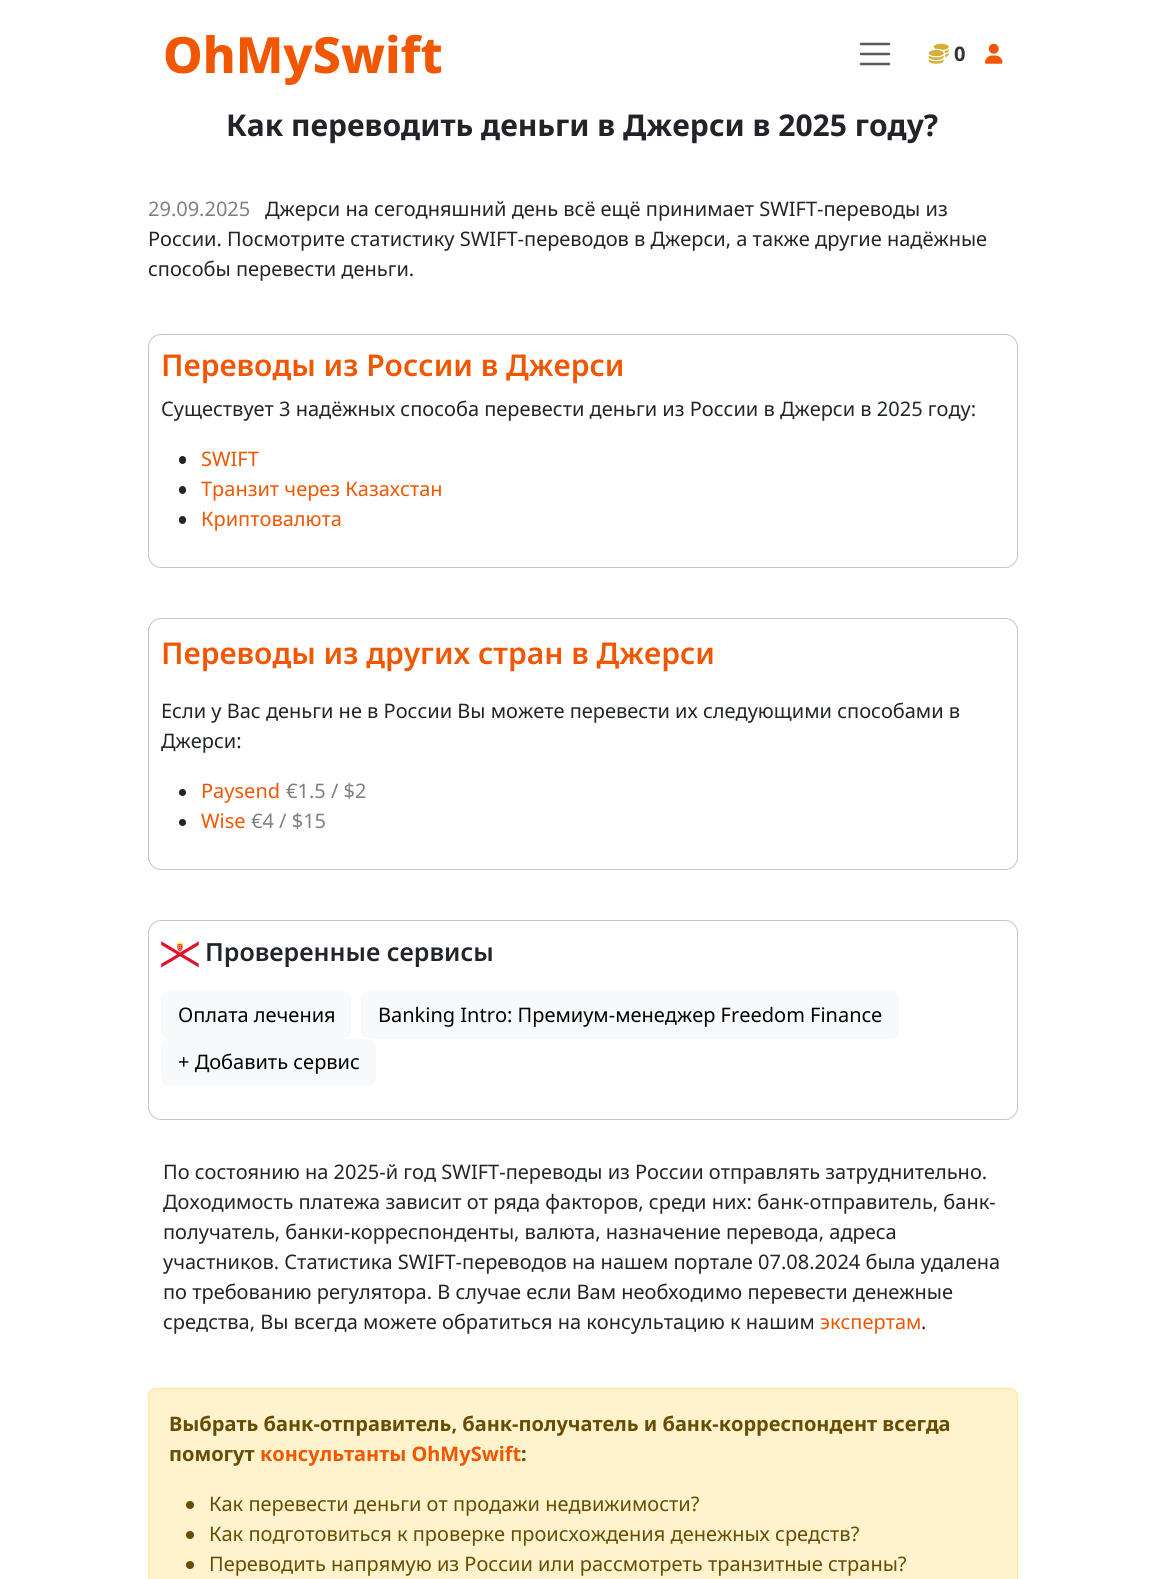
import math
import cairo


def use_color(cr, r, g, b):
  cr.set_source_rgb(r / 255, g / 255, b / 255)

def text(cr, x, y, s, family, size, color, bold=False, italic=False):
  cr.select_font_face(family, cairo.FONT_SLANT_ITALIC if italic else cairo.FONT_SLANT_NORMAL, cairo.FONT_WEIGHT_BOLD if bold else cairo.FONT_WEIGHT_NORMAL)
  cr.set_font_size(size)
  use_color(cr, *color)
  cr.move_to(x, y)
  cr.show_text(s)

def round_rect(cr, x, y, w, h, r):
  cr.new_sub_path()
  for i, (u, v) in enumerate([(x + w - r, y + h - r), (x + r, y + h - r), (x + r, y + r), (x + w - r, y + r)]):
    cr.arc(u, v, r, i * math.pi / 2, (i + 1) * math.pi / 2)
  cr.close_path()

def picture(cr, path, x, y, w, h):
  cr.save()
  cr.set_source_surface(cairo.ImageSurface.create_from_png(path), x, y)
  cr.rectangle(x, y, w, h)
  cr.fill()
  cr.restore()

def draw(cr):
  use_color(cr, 255, 255, 255)
  cr.paint()
  cr.new_path()
  cr.move_to(861, 44)
  cr.line_to(889, 44)
  cr.move_to(861, 54)
  cr.line_to(889, 54)
  cr.move_to(861, 64)
  cr.line_to(889, 64)
  use_color(cr, 89, 92, 95)
  cr.set_line_width(2.5)
  cr.set_line_cap(cairo.LINE_CAP_ROUND)
  cr.stroke()
  picture(cr, "img_01.png", 928, 43, 21, 21)
  picture(cr, "img_02.png", 985, 43, 18, 21)
  round_rect(cr, 148.5, 334.5, 869, 233, 12.5)
  use_color(cr, 200, 196, 196)
  cr.set_line_width(1)
  cr.set_line_cap(cairo.LINE_CAP_BUTT)
  cr.stroke()
  use_color(cr, 33, 37, 41)
  round_rect(cr, 179, 456, 7, 8, 3.5)
  cr.fill()
  round_rect(cr, 179, 486, 7, 8, 3.5)
  cr.fill()
  round_rect(cr, 179, 516, 7, 8, 3.5)
  cr.fill()
  round_rect(cr, 148.5, 618.5, 869, 251, 12.5)
  use_color(cr, 200, 196, 196)
  cr.stroke()
  use_color(cr, 33, 37, 41)
  cr.arc(182.5, 792.5, 3.5, 0, 2 * math.pi)
  cr.fill()
  cr.arc(182.5, 822.5, 3.5, 0, 2 * math.pi)
  cr.fill()
  round_rect(cr, 148.5, 920.5, 869, 199, 12.5)
  use_color(cr, 200, 196, 196)
  cr.stroke()
  picture(cr, "img_03.png", 161, 941, 38, 27)
  use_color(cr, 248, 249, 250)
  round_rect(cr, 161, 991, 190, 48, 8)
  cr.fill()
  round_rect(cr, 361, 991, 538, 48, 8)
  cr.fill()
  round_rect(cr, 161, 1039, 215, 47, 8)
  cr.fill()
  use_color(cr, 255, 243, 205)
  round_rect(cr, 148.5, 1388.5, 869, 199, 7.5)
  cr.fill_preserve()
  use_color(cr, 255, 230, 156)
  cr.stroke()
  use_color(cr, 102, 77, 3)
  cr.arc(190, 1505, 4, 0, 2 * math.pi)
  cr.fill()
  cr.arc(190, 1535, 4, 0, 2 * math.pi)
  cr.fill()
  cr.arc(190, 1565, 4, 0, 2 * math.pi)
  cr.fill()
  text(cr, 163, 73, "OhMySwift", "Noto Sans ExtraBold", 50, (241, 86, 0))
  text(cr, 954, 61, "0", "Noto Sans", 20, (51, 51, 51), bold=True)
  text(cr, 226, 136, "Как переводить деньги в Джерси в 2025 году?", "Noto Sans", 30, (33, 37, 41), bold=True)
  text(cr, 148, 216, "29.09.2025", "Noto Sans", 20, (128, 128, 128))
  text(cr, 265, 216, "Джерси на сегодняшний день всё ещё принимает SWIFT-переводы из", "Noto Sans", 20, (33, 37, 41))
  text(cr, 148, 246, "России. Посмотрите статистику SWIFT-переводов в Джерси, а также другие надёжные", "Noto Sans", 20, (33, 37, 41))
  text(cr, 148, 276, "способы перевести деньги.", "Noto Sans", 20, (33, 37, 41))
  text(cr, 161, 376, "Переводы из России в Джерси", "Noto Sans SemiBold", 30, (241, 86, 0))
  text(cr, 161, 416, "Существует 3 надёжных способа перевести деньги из России в Джерси в 2025 году:", "Noto Sans", 20, (33, 37, 41))
  text(cr, 201, 466, "SWIFT", "Noto Sans", 20, (241, 86, 0))
  text(cr, 201, 496, "Транзит через Казахстан", "Noto Sans", 20, (241, 86, 0))
  text(cr, 201, 526, "Криптовалюта", "Noto Sans", 20, (241, 86, 0))
  text(cr, 161, 664, "Переводы из других стран в Джерси", "Noto Sans SemiBold", 30, (241, 86, 0))
  text(cr, 161, 718, "Если у Вас деньги не в России Вы можете перевести их следующими способами в", "Noto Sans", 20, (33, 37, 41))
  text(cr, 161, 748, "Джерси:", "Noto Sans", 20, (33, 37, 41))
  text(cr, 201, 798, "Paysend", "Noto Sans", 20, (241, 86, 0))
  text(cr, 286, 798, "€1.5 / $2", "Noto Sans", 20, (128, 128, 128))
  text(cr, 201, 828, "Wise", "Noto Sans", 20, (241, 86, 0))
  text(cr, 251, 828, "€4 / $15", "Noto Sans", 20, (128, 128, 128))
  text(cr, 205, 961, "Проверенные сервисы", "Noto Sans SemiBold", 25, (33, 37, 41))
  text(cr, 178, 1022, "Оплата лечения", "Noto Sans", 20, (0, 0, 0))
  text(cr, 378, 1022, "Banking Intro: Премиум-менеджер Freedom Finance", "Noto Sans", 20, (0, 0, 0))
  text(cr, 178, 1069, "+ Добавить сервис", "Noto Sans", 20, (0, 0, 0))
  text(cr, 163, 1179, "По состоянию на 2025-й год SWIFT-переводы из России отправлять затруднительно.", "Noto Sans", 20, (33, 37, 41))
  text(cr, 163, 1209, "Доходимость платежа зависит от ряда факторов, среди них: банк-отправитель, банк-", "Noto Sans", 20, (33, 37, 41))
  text(cr, 163, 1239, "получатель, банки-корреспонденты, валюта, назначение перевода, адреса", "Noto Sans", 20, (33, 37, 41))
  text(cr, 163, 1269, "участников. Статистика SWIFT-переводов на нашем портале 07.08.2024 была удалена", "Noto Sans", 20, (33, 37, 41))
  text(cr, 163, 1299, "по требованию регулятора. В случае если Вам необходимо перевести денежные", "Noto Sans", 20, (33, 37, 41))
  text(cr, 163, 1329, "средства, Вы всегда можете обратиться на консультацию к нашим", "Noto Sans", 20, (33, 37, 41))
  text(cr, 820, 1329, "экспертам", "Noto Sans", 20, (241, 86, 0))
  text(cr, 921, 1329, ".", "Noto Sans", 20, (33, 37, 41))
  text(cr, 169, 1431, "Выбрать банк-отправитель, банк-получатель и банк-корреспондент всегда", "Noto Sans", 20, (102, 77, 3), bold=True)
  text(cr, 169, 1461, "помогут", "Noto Sans", 20, (102, 77, 3), bold=True)
  text(cr, 260, 1461, "консультанты OhMySwift", "Noto Sans", 20, (241, 86, 0), bold=True)
  text(cr, 521, 1461, ":", "Noto Sans", 20, (102, 77, 3), bold=True)
  text(cr, 209, 1511, "Как перевести деньги от продажи недвижимости?", "Noto Sans", 20, (102, 77, 3))
  text(cr, 209, 1541, "Как подготовиться к проверке происхождения денежных средств?", "Noto Sans", 20, (102, 77, 3))
  text(cr, 209, 1571, "Переводить напрямую из России или рассмотреть транзитные страны?", "Noto Sans", 20, (102, 77, 3))


surface = cairo.ImageSurface(cairo.FORMAT_RGB24, 1165, 1579)
cr = cairo.Context(surface)
options = cairo.FontOptions()
options.set_hint_metrics(cairo.HINT_METRICS_OFF)
options.set_hint_style(cairo.HINT_STYLE_NONE)
cr.set_font_options(options)
cr.set_miter_limit(4)
draw(cr)
surface.write_to_png("out.png")
